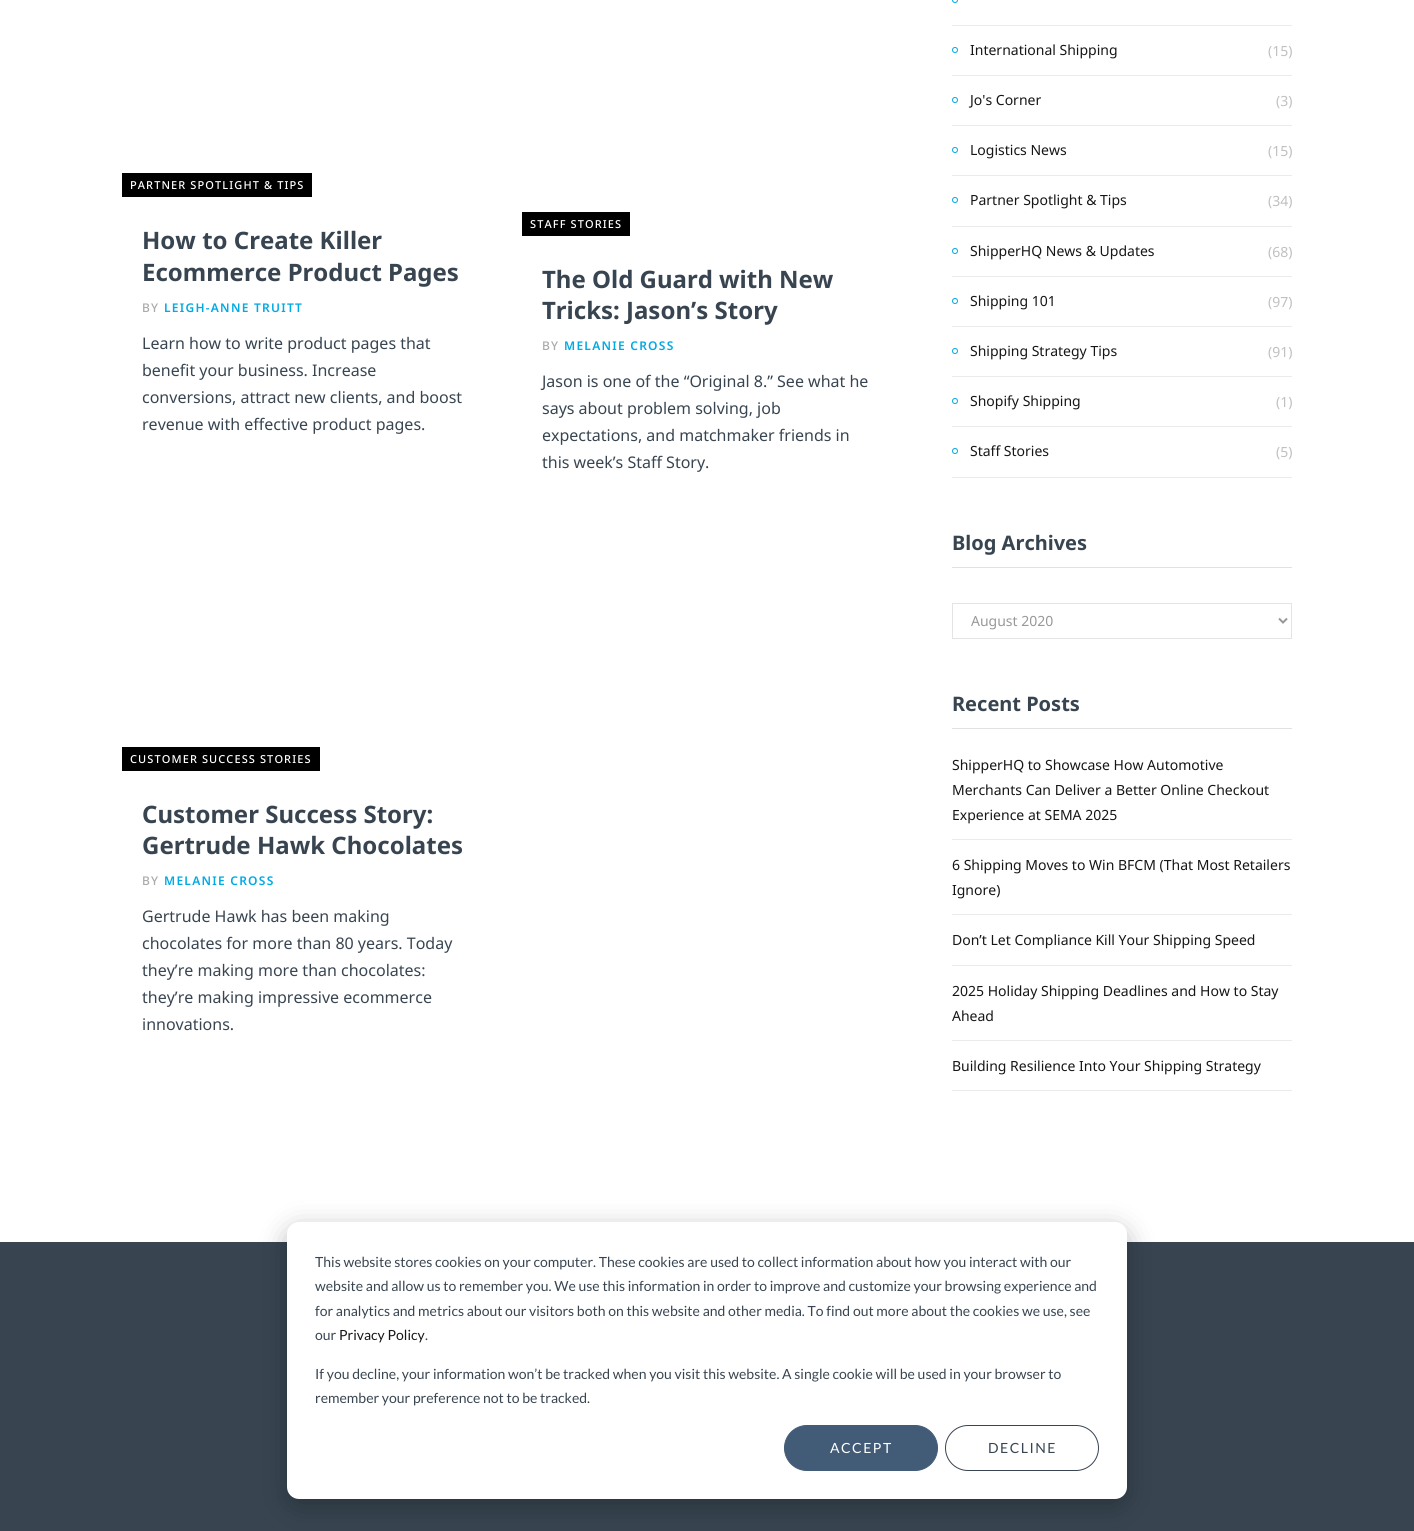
import math
import cairo


def use_color(cr, r, g, b):
  cr.set_source_rgb(r / 255, g / 255, b / 255)

def text(cr, x, y, s, family, size, color, bold=False, italic=False):
  cr.select_font_face(family, cairo.FONT_SLANT_ITALIC if italic else cairo.FONT_SLANT_NORMAL, cairo.FONT_WEIGHT_BOLD if bold else cairo.FONT_WEIGHT_NORMAL)
  cr.set_font_size(size)
  use_color(cr, *color)
  cr.move_to(x, y)
  cr.show_text(s)

def spaced_text(cr, x, y, s, letter, word):
  cr.move_to(x, y)
  for ch in s:
    cr.show_text(ch)
    cr.rel_move_to(letter + word * (ch == ' '), 0)

def box(cr, x, y, w, h, *color):
  use_color(cr, *color)
  cr.rectangle(x, y, w, h)
  cr.fill()

def round_rect(cr, x, y, w, h, r):
  cr.new_sub_path()
  for i, (u, v) in enumerate([(x + w - r, y + h - r), (x + r, y + h - r), (x + r, y + r), (x + w - r, y + r)]):
    cr.arc(u, v, r, i * math.pi / 2, (i + 1) * math.pi / 2)
  cr.close_path()

def shadow(cr, x, y, w, h, r, blur, alpha):
  cr.push_group_with_content(cairo.CONTENT_ALPHA)
  cr.set_operator(cairo.OPERATOR_SOURCE)
  for i in range(15, -16, -2):
    e = blur * i / 6
    if min(w, h) + 2 * e > 0:
      cr.set_source_rgba(0, 0, 0, alpha * math.erfc((i - 1) / 8.5) / 2)
      round_rect(cr, x - e, y - e, w + 2 * e, h + 2 * e, max(0, min(r + e + blur * .6, min(w, h) / 2 + e)))
      cr.fill()
  cr.mask(cr.pop_group())

def draw(cr):
  use_color(cr, 255, 255, 255)
  cr.paint()
  box(cr, 122, 173, 190, 24, 0, 0, 0)
  box(cr, 522, 212, 108, 24, 0, 0, 0)
  box(cr, 122, 747, 198, 24, 0, 0, 0)
  box(cr, 952, 25, 340, 1, 235, 235, 235)
  cr.arc(955, 0, 2.5, 0, 2 * math.pi)
  use_color(cr, 0, 170, 229)
  cr.set_line_width(1)
  cr.stroke()
  box(cr, 952, 75, 340, 1, 235, 235, 235)
  cr.arc(955, 50, 2.5, 0, 2 * math.pi)
  use_color(cr, 0, 170, 229)
  cr.stroke()
  box(cr, 952, 125, 340, 1, 235, 235, 235)
  cr.arc(955, 100, 2.5, 0, 2 * math.pi)
  use_color(cr, 0, 170, 229)
  cr.stroke()
  box(cr, 952, 175, 340, 1, 235, 235, 235)
  cr.arc(955, 150, 2.5, 0, 2 * math.pi)
  use_color(cr, 0, 170, 229)
  cr.stroke()
  box(cr, 952, 226, 340, 1, 235, 235, 235)
  cr.arc(955, 200, 2.5, 0, 2 * math.pi)
  use_color(cr, 0, 170, 229)
  cr.stroke()
  box(cr, 952, 276, 340, 1, 235, 235, 235)
  cr.arc(955, 251, 2.5, 0, 2 * math.pi)
  use_color(cr, 0, 170, 229)
  cr.stroke()
  box(cr, 952, 326, 340, 1, 235, 235, 235)
  cr.arc(955, 301, 2.5, 0, 2 * math.pi)
  use_color(cr, 0, 170, 229)
  cr.stroke()
  box(cr, 952, 376, 340, 1, 235, 235, 235)
  cr.arc(955, 351, 2.5, 0, 2 * math.pi)
  use_color(cr, 0, 170, 229)
  cr.stroke()
  box(cr, 952, 426, 340, 1, 235, 235, 235)
  cr.arc(955, 401, 2.5, 0, 2 * math.pi)
  use_color(cr, 0, 170, 229)
  cr.stroke()
  box(cr, 952, 477, 340, 1, 235, 235, 235)
  cr.arc(955, 451, 2.5, 0, 2 * math.pi)
  use_color(cr, 0, 170, 229)
  cr.stroke()
  box(cr, 952, 567, 340, 1, 225, 225, 225)
  cr.rectangle(952.5, 603.5, 339, 35)
  use_color(cr, 228, 228, 228)
  cr.stroke()
  cr.new_path()
  cr.move_to(1279, 618.5)
  cr.line_to(1283, 622.5)
  cr.line_to(1287, 618.5)
  use_color(cr, 152, 152, 152)
  cr.set_line_width(2)
  cr.stroke()
  box(cr, 952, 728, 340, 1, 225, 225, 225)
  box(cr, 952, 839, 340, 1, 235, 235, 235)
  box(cr, 952, 914, 340, 1, 235, 235, 235)
  box(cr, 952, 965, 340, 1, 235, 235, 235)
  box(cr, 952, 1040, 340, 1, 235, 235, 235)
  box(cr, 952, 1090, 340, 1, 235, 235, 235)
  box(cr, 0, 1242, 1414, 289, 56, 69, 81)
  use_color(cr, 0, 0, 0)
  shadow(cr, 287, 1230, 840, 277, 12, 14, 0.28)
  use_color(cr, 255, 255, 255)
  round_rect(cr, 287, 1222, 840, 277, 12)
  cr.fill()
  use_color(cr, 66, 91, 118)
  round_rect(cr, 784.5, 1425.5, 153, 45, 22.5)
  cr.fill_preserve()
  cr.set_line_width(1)
  cr.stroke()
  round_rect(cr, 945.5, 1425.5, 153, 45, 22.5)
  use_color(cr, 56, 68, 81)
  cr.stroke()
  cr.select_font_face("Noto Sans Medium")
  cr.set_font_size(11)
  use_color(cr, 255, 255, 255)
  spaced_text(cr, 130, 189, "PARTNER SPOTLIGHT & TIPS", 1.1, 0)
  text(cr, 142, 249, "How to Create Killer", "Noto Sans", 24, (56, 69, 81), bold=True)
  text(cr, 142, 281, "Ecommerce Product Pages", "Noto Sans", 24, (56, 69, 81), bold=True)
  cr.select_font_face("Noto Sans Medium")
  cr.set_font_size(12)
  use_color(cr, 170, 170, 170)
  spaced_text(cr, 142, 312, "BY", 1.25, 0)
  cr.select_font_face("Noto Sans SemiBold")
  use_color(cr, 0, 170, 229)
  spaced_text(cr, 164, 312, "LEIGH-ANNE TRUITT", 1.25, 0)
  text(cr, 142, 349, "Learn how to write product pages that", "Noto Sans", 16, (56, 69, 81))
  text(cr, 142, 376, "benefit your business. Increase", "Noto Sans", 16, (56, 69, 81))
  text(cr, 142, 403, "conversions, attract new clients, and boost", "Noto Sans", 16, (56, 69, 81))
  text(cr, 142, 430, "revenue with effective product pages.", "Noto Sans", 16, (56, 69, 81))
  cr.select_font_face("Noto Sans Medium")
  cr.set_font_size(11)
  use_color(cr, 255, 255, 255)
  spaced_text(cr, 530, 228, "STAFF STORIES", 1.1, 0)
  text(cr, 542, 288, "The Old Guard with New", "Noto Sans", 24, (56, 69, 81), bold=True)
  text(cr, 542, 319, "Tricks: Jason’s Story", "Noto Sans", 24, (56, 69, 81), bold=True)
  cr.select_font_face("Noto Sans Medium")
  cr.set_font_size(12)
  use_color(cr, 170, 170, 170)
  spaced_text(cr, 542, 350, "BY", 1.25, 0)
  cr.select_font_face("Noto Sans SemiBold")
  use_color(cr, 0, 170, 229)
  spaced_text(cr, 564, 350, "MELANIE CROSS", 1.25, 0)
  text(cr, 542, 387, "Jason is one of the “Original 8.” See what he", "Noto Sans", 16, (56, 69, 81))
  text(cr, 542, 414, "says about problem solving, job", "Noto Sans", 16, (56, 69, 81))
  text(cr, 542, 441, "expectations, and matchmaker friends in", "Noto Sans", 16, (56, 69, 81))
  text(cr, 542, 468, "this week’s Staff Story.", "Noto Sans", 16, (56, 69, 81))
  cr.select_font_face("Noto Sans Medium")
  cr.set_font_size(11)
  use_color(cr, 255, 255, 255)
  spaced_text(cr, 130, 763, "CUSTOMER SUCCESS STORIES", 1.1, 0)
  text(cr, 142, 823, "Customer Success Story:", "Noto Sans", 24, (56, 69, 81), bold=True)
  text(cr, 142, 854, "Gertrude Hawk Chocolates", "Noto Sans", 24, (56, 69, 81), bold=True)
  cr.select_font_face("Noto Sans Medium")
  cr.set_font_size(12)
  use_color(cr, 170, 170, 170)
  spaced_text(cr, 142, 885, "BY", 1.25, 0)
  cr.select_font_face("Noto Sans SemiBold")
  use_color(cr, 0, 170, 229)
  spaced_text(cr, 164, 885, "MELANIE CROSS", 1.25, 0)
  text(cr, 142, 922, "Gertrude Hawk has been making", "Noto Sans", 16, (56, 69, 81))
  text(cr, 142, 949, "chocolates for more than 80 years. Today", "Noto Sans", 16, (56, 69, 81))
  text(cr, 142, 976, "they’re making more than chocolates:", "Noto Sans", 16, (56, 69, 81))
  text(cr, 142, 1003, "they’re making impressive ecommerce", "Noto Sans", 16, (56, 69, 81))
  text(cr, 142, 1030, "innovations.", "Noto Sans", 16, (56, 69, 81))
  text(cr, 970, 55, "International Shipping", "Noto Sans", 14, (22, 22, 22))
  text(cr, 1268, 56, "(15)", "Noto Sans", 14, (192, 192, 192))
  text(cr, 970, 105, "Jo's Corner", "Noto Sans", 14, (22, 22, 22))
  text(cr, 1276, 106, "(3)", "Noto Sans", 14, (192, 192, 192))
  text(cr, 970, 155, "Logistics News", "Noto Sans", 14, (22, 22, 22))
  text(cr, 1268, 156, "(15)", "Noto Sans", 14, (192, 192, 192))
  text(cr, 970, 205, "Partner Spotlight & Tips", "Noto Sans", 14, (22, 22, 22))
  text(cr, 1268, 206, "(34)", "Noto Sans", 14, (192, 192, 192))
  text(cr, 970, 256, "ShipperHQ News & Updates", "Noto Sans", 14, (22, 22, 22))
  text(cr, 1268, 257, "(68)", "Noto Sans", 14, (192, 192, 192))
  text(cr, 970, 306, "Shipping 101", "Noto Sans", 14, (22, 22, 22))
  text(cr, 1268, 307, "(97)", "Noto Sans", 14, (192, 192, 192))
  text(cr, 970, 356, "Shipping Strategy Tips", "Noto Sans", 14, (22, 22, 22))
  text(cr, 1268, 357, "(91)", "Noto Sans", 14, (192, 192, 192))
  text(cr, 970, 406, "Shopify Shipping", "Noto Sans", 14, (22, 22, 22))
  text(cr, 1276, 407, "(1)", "Noto Sans", 14, (192, 192, 192))
  text(cr, 970, 456, "Staff Stories", "Noto Sans", 14, (22, 22, 22))
  text(cr, 1276, 457, "(5)", "Noto Sans", 14, (192, 192, 192))
  text(cr, 952, 550, "Blog Archives", "Noto Sans", 20, (56, 69, 81), bold=True)
  text(cr, 971, 626, "August 2020", "Noto Sans", 14, (152, 152, 152))
  text(cr, 952, 711, "Recent Posts", "Noto Sans", 20, (56, 69, 81), bold=True)
  text(cr, 952, 770, "ShipperHQ to Showcase How Automotive", "Noto Sans", 14, (22, 22, 22))
  text(cr, 952, 795, "Merchants Can Deliver a Better Online Checkout", "Noto Sans", 14, (22, 22, 22))
  text(cr, 952, 820, "Experience at SEMA 2025", "Noto Sans", 14, (22, 22, 22))
  text(cr, 952, 870, "6 Shipping Moves to Win BFCM (That Most Retailers", "Noto Sans", 14, (22, 22, 22))
  text(cr, 952, 895, "Ignore)", "Noto Sans", 14, (22, 22, 22))
  text(cr, 952, 945, "Don’t Let Compliance Kill Your Shipping Speed", "Noto Sans", 14, (22, 22, 22))
  text(cr, 952, 996, "2025 Holiday Shipping Deadlines and How to Stay", "Noto Sans", 14, (22, 22, 22))
  text(cr, 952, 1021, "Ahead", "Noto Sans", 14, (22, 22, 22))
  text(cr, 952, 1071, "Building Resilience Into Your Shipping Strategy", "Noto Sans", 14, (22, 22, 22))
  text(cr, 315, 1267, "This website stores cookies on your computer. These cookies are used to collect information about how you interact with our", "Lato", 14, (56, 69, 81))
  text(cr, 315, 1291, "website and allow us to remember you. We use this information in order to improve and customize your browsing experience and", "Lato", 14, (56, 69, 81))
  text(cr, 315, 1316, "for analytics and metrics about our visitors both on this website and other media. To find out more about the cookies we use, see", "Lato", 14, (56, 69, 81))
  text(cr, 315, 1340, "our", "Lato", 14, (56, 69, 81))
  text(cr, 339, 1340, "Privacy Policy", "Lato", 14, (22, 22, 22))
  text(cr, 425, 1340, ".", "Lato", 14, (56, 69, 81))
  text(cr, 315, 1379, "If you decline, your information won’t be tracked when you visit this website. A single cookie will be used in your browser to", "Lato", 14, (56, 69, 81))
  text(cr, 315, 1403, "remember your preference not to be tracked.", "Lato", 14, (56, 69, 81))
  use_color(cr, 255, 255, 255)
  spaced_text(cr, 830, 1453, "ACCEPT", 1.5, 0)
  use_color(cr, 56, 69, 81)
  spaced_text(cr, 988, 1453, "DECLINE", 1.5, 0)


surface = cairo.ImageSurface(cairo.FORMAT_RGB24, 1414, 1531)
cr = cairo.Context(surface)
options = cairo.FontOptions()
options.set_hint_metrics(cairo.HINT_METRICS_OFF)
options.set_hint_style(cairo.HINT_STYLE_NONE)
cr.set_font_options(options)
cr.set_miter_limit(4)
draw(cr)
surface.write_to_png("out.png")
